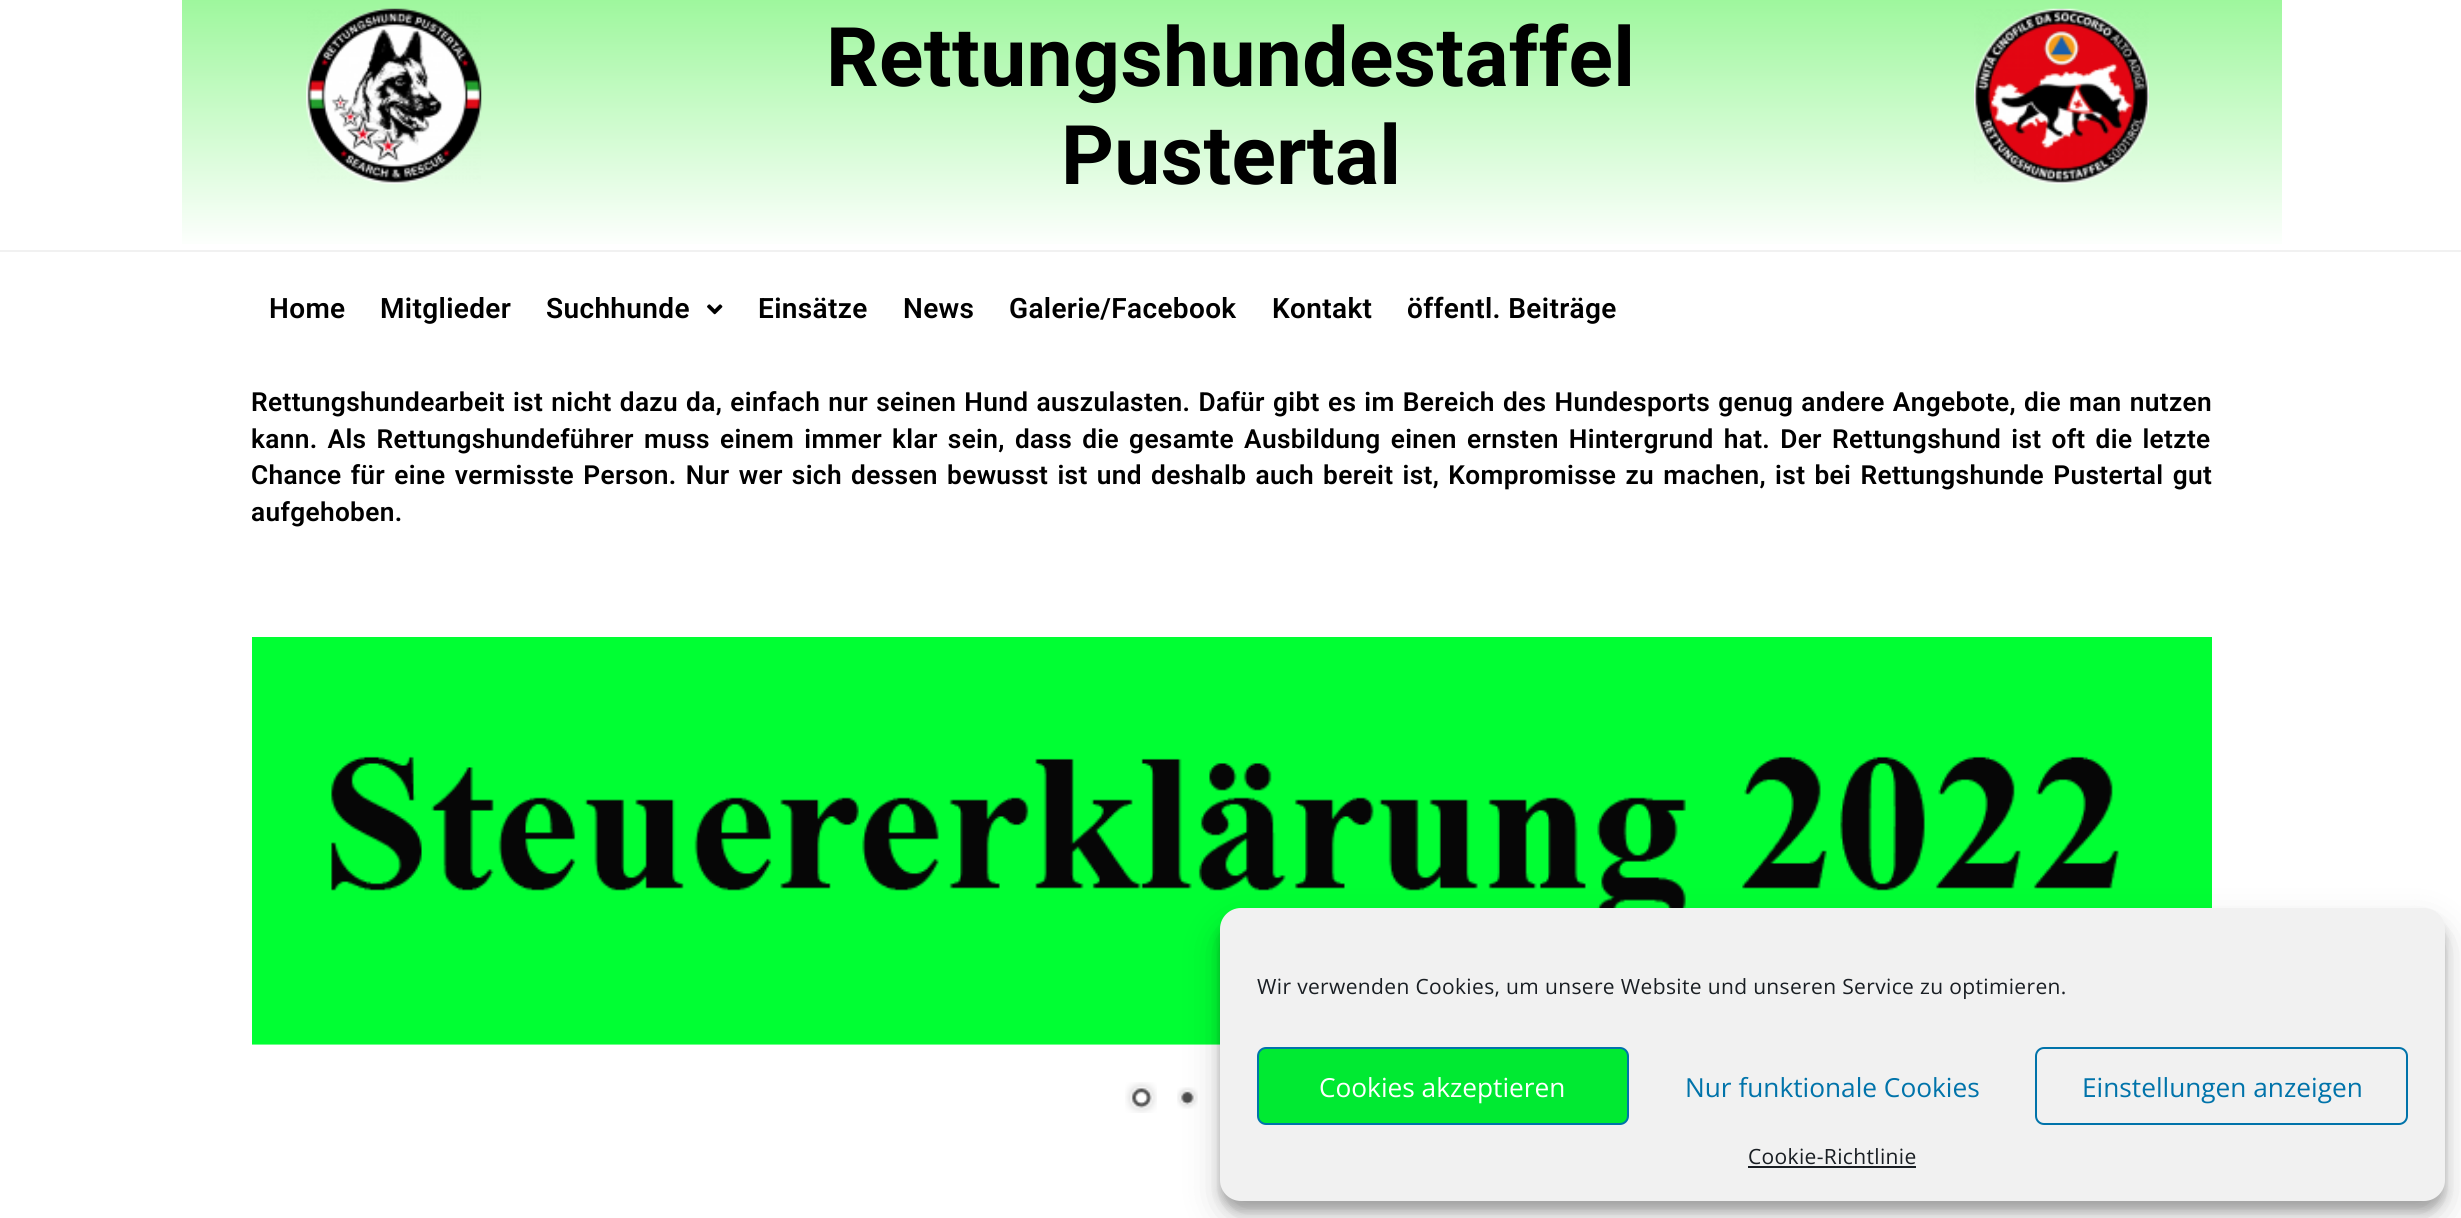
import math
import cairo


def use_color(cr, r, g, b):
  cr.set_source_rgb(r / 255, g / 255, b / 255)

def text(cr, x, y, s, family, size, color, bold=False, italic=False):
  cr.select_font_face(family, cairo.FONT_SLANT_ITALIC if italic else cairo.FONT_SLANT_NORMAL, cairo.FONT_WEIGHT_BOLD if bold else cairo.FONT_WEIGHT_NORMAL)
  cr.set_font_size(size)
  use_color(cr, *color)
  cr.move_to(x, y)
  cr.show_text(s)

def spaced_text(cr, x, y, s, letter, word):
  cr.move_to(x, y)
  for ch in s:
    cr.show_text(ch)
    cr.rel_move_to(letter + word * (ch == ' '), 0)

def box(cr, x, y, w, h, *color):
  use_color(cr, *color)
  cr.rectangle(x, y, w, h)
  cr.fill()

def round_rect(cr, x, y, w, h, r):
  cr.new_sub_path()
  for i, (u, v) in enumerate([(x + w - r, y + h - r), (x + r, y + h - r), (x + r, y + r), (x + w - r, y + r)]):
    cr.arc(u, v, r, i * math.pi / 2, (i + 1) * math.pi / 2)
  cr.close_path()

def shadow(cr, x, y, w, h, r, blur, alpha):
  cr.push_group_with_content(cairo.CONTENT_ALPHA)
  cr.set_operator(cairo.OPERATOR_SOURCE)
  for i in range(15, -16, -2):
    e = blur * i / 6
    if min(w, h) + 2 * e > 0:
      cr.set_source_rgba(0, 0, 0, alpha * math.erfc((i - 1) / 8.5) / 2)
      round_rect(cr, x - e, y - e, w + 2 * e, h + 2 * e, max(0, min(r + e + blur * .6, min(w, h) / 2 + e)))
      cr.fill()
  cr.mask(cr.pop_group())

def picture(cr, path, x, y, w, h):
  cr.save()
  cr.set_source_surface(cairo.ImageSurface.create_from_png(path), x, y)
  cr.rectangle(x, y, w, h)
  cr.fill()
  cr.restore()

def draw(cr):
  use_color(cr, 255, 255, 255)
  cr.paint()
  box(cr, 0, 250, 2461, 2, 241, 241, 241)
  gradient = cairo.LinearGradient(1232, 0, 1232, 250)
  gradient.add_color_stop_rgba(0, 0.62, 0.969, 0.616, 1)
  gradient.add_color_stop_rgba(1, 1, 1, 1, 1)
  cr.set_source(gradient)
  cr.rectangle(182, 0, 2100, 244)
  cr.fill()
  picture(cr, "img_01.png", 306, 8, 176, 176)
  picture(cr, "img_02.png", 1974, 8, 175, 176)
  picture(cr, "img_03.png", 707, 304, 16, 11)
  picture(cr, "img_04.png", 252, 637, 1960, 408)
  picture(cr, "img_05.png", 1125, 1082, 32, 31)
  picture(cr, "img_06.png", 1177, 1087, 21, 22)
  use_color(cr, 0, 0, 0)
  shadow(cr, 1220, 919, 1225, 292, 21, 5, 0.23)
  shadow(cr, 1220, 926, 1225, 292, 21, 17.5, 0.19)
  use_color(cr, 241, 241, 241)
  round_rect(cr, 1221, 909, 1223, 291, 20)
  cr.fill_preserve()
  cr.stroke()
  use_color(cr, 0, 234, 50)
  round_rect(cr, 1258, 1048, 370, 76, 8)
  cr.fill_preserve()
  use_color(cr, 0, 115, 170)
  cr.stroke()
  round_rect(cr, 2036, 1048, 371, 76, 8)
  cr.stroke()
  box(cr, 1748, 1166, 168, 2, 25, 30, 35)
  cr.select_font_face("Roboto", cairo.FONT_SLANT_NORMAL, cairo.FONT_WEIGHT_BOLD)
  cr.set_font_size(82.25)
  use_color(cr, 0, 0, 0)
  spaced_text(cr, 826, 86, "Rettungshundestaffel", 0.35, 0)
  spaced_text(cr, 1061, 184, "Pustertal", 0.35, 0)
  cr.select_font_face("Roboto SemiBold")
  cr.set_font_size(28)
  spaced_text(cr, 269, 318, "Home", 0.35, 0)
  spaced_text(cr, 380, 318, "Mitglieder", 0.35, 0)
  spaced_text(cr, 546, 318, "Suchhunde", 0.35, 0)
  spaced_text(cr, 758, 318, "Einsätze", 0.35, 0)
  spaced_text(cr, 903, 318, "News", 0.35, 0)
  spaced_text(cr, 1009, 318, "Galerie/Facebook", 0.35, 0)
  spaced_text(cr, 1272, 318, "Kontakt", 0.35, 0)
  spaced_text(cr, 1407, 318, "öffentl. Beiträge", 0.35, 0)
  cr.set_font_size(26.25)
  spaced_text(cr, 251, 411, "Rettungshundearbeit ist nicht dazu da, einfach nur seinen Hund auszulasten. Dafür gibt es im Bereich des Hundesports genug andere Angebote, die man nutzen", 0.35, 1.25)
  spaced_text(cr, 251, 448, "kann. Als Rettungshundeführer muss einem immer klar sein, dass die gesamte Ausbildung einen ernsten Hintergrund hat. Der Rettungshund ist oft die letzte", 0.35, 3.2)
  spaced_text(cr, 251, 484, "Chance für eine vermisste Person. Nur wer sich dessen bewusst ist und deshalb auch bereit ist, Kompromisse zu machen, ist bei Rettungshunde Pustertal gut", 0.35, 2.3)
  spaced_text(cr, 251, 521, "aufgehoben.", 0.35, 0)
  cr.select_font_face("Open Sans")
  cr.set_font_size(21)
  use_color(cr, 25, 30, 35)
  spaced_text(cr, 1257, 994, "Wir verwenden Cookies, um unsere Website und unseren Service zu optimieren.", 0.35, 0)
  text(cr, 1319, 1097, "Cookies akzeptieren", "Open Sans", 26.25, (255, 255, 255))
  text(cr, 1685, 1097, "Nur funktionale Cookies", "Open Sans", 26.25, (0, 115, 170))
  text(cr, 2082, 1097, "Einstellungen anzeigen", "Open Sans", 26.25, (0, 115, 170))
  cr.set_font_size(21)
  use_color(cr, 25, 30, 35)
  spaced_text(cr, 1748, 1164, "Cookie-Richtlinie", 0.35, 0)


surface = cairo.ImageSurface(cairo.FORMAT_RGB24, 2461, 1218)
cr = cairo.Context(surface)
options = cairo.FontOptions()
options.set_hint_metrics(cairo.HINT_METRICS_OFF)
options.set_hint_style(cairo.HINT_STYLE_NONE)
cr.set_font_options(options)
cr.set_miter_limit(4)
draw(cr)
surface.write_to_png("out.png")
